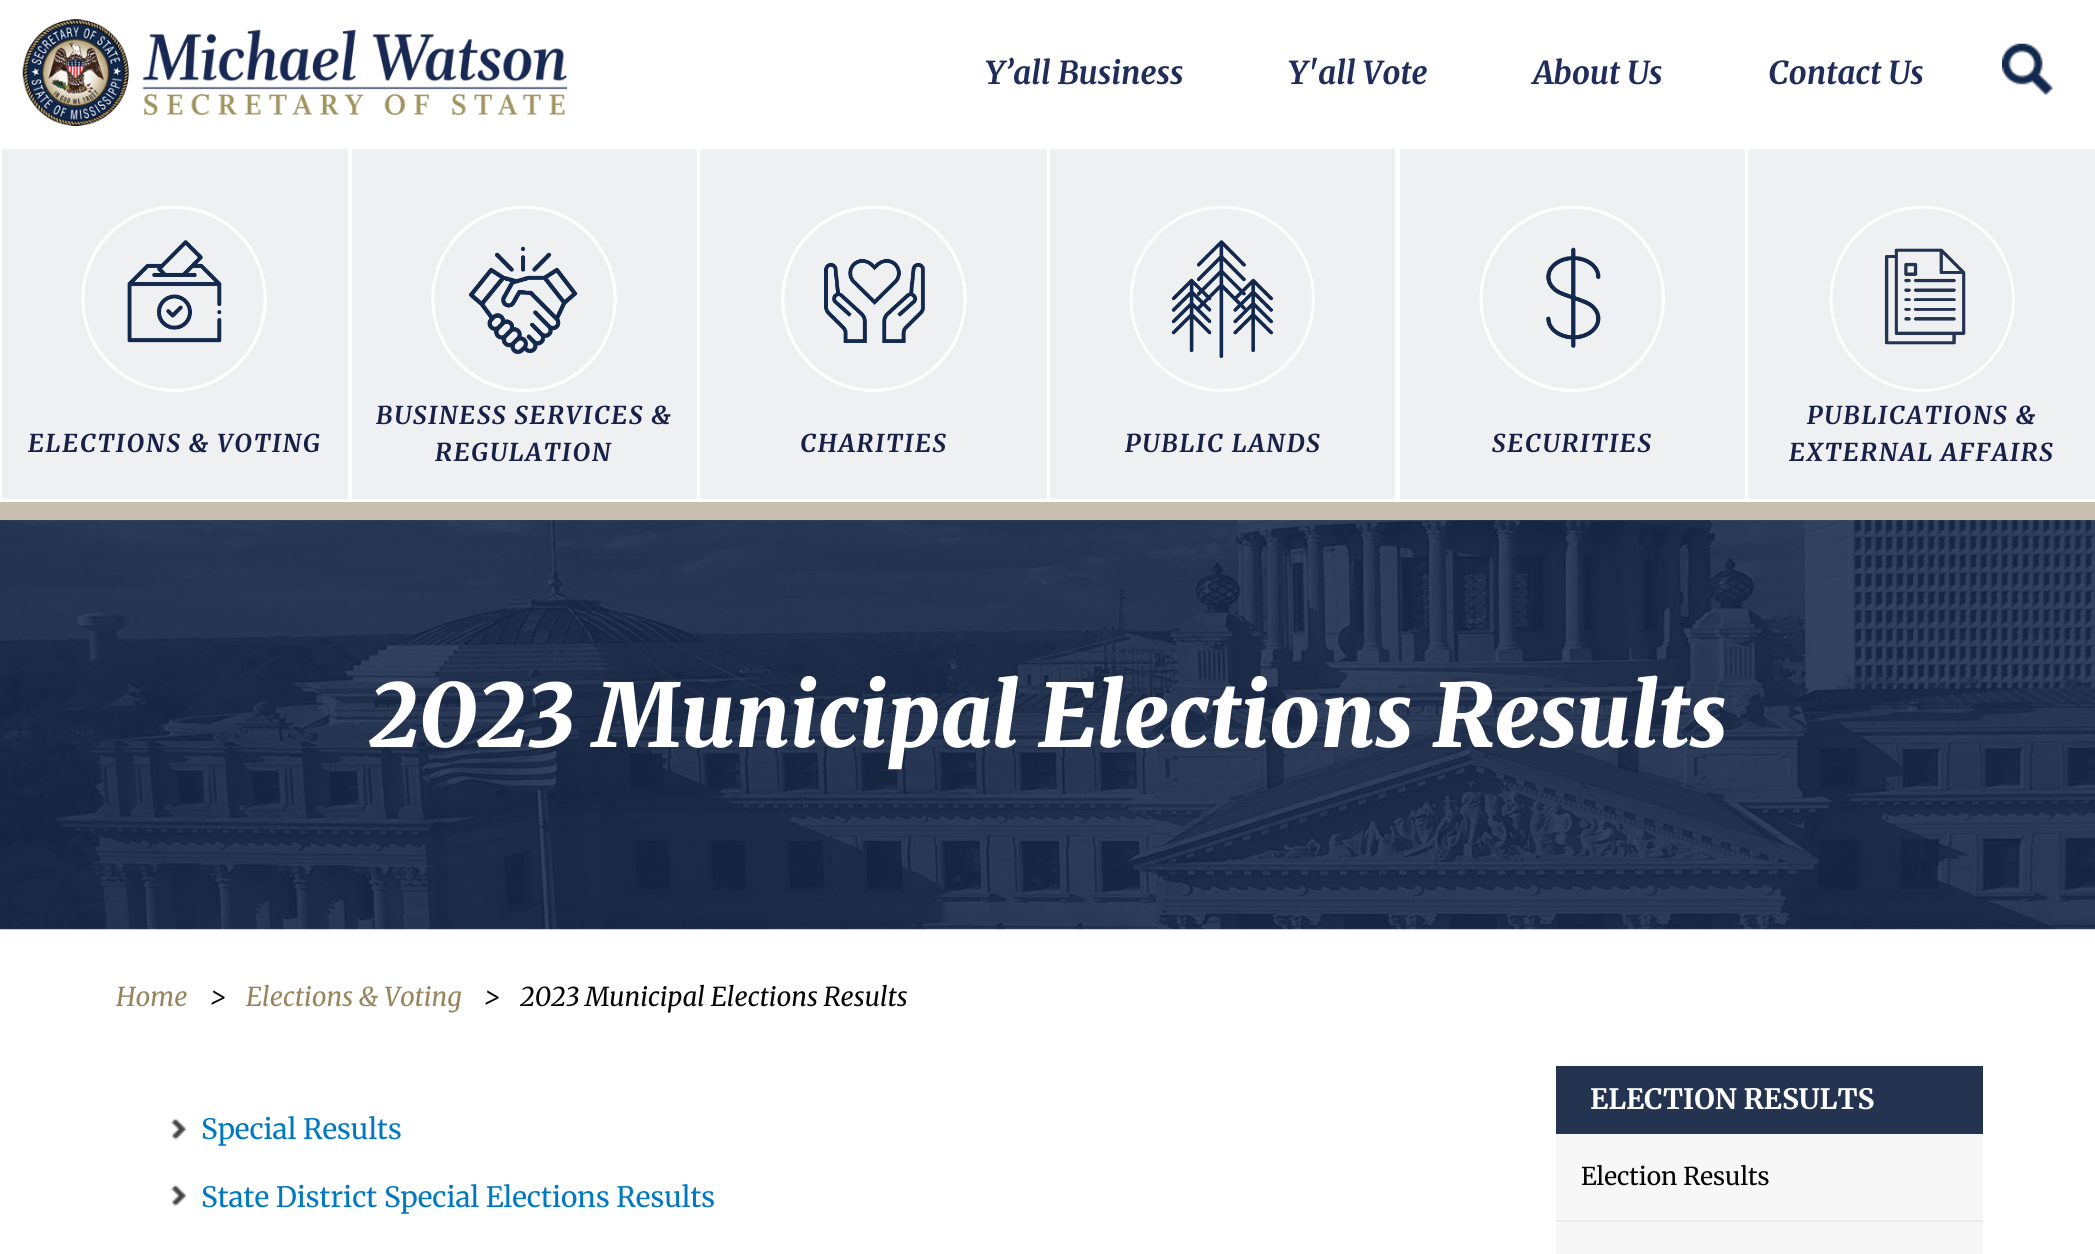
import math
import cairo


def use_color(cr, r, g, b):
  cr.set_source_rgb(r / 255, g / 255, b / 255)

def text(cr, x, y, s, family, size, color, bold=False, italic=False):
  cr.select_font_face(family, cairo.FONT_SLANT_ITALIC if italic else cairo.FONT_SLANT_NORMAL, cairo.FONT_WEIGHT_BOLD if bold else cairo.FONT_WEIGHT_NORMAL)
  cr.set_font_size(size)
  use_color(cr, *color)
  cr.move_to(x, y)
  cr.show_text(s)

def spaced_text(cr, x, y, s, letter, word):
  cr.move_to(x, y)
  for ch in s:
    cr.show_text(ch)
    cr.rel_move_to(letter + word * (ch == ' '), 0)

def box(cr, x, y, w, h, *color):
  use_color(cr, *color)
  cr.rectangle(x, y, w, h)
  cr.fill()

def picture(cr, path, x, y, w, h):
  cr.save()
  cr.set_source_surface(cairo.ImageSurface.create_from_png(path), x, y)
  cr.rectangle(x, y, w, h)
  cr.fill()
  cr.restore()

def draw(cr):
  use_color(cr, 255, 255, 255)
  cr.paint()
  picture(cr, "img_01.png", 22, 19, 545, 107)
  picture(cr, "img_02.png", 2002, 43, 51, 52)
  box(cr, 0, 502, 2095, 18, 200, 191, 175)
  box(cr, 2, 149, 346, 350, 239, 240, 241)
  picture(cr, "img_03.png", 81, 206, 186, 186)
  box(cr, 352, 149, 345, 350, 239, 240, 241)
  picture(cr, "img_04.png", 431, 206, 186, 186)
  box(cr, 700, 149, 347, 350, 239, 240, 241)
  picture(cr, "img_05.png", 781, 206, 186, 186)
  box(cr, 1050, 149, 345, 350, 239, 240, 241)
  picture(cr, "img_06.png", 1129, 206, 186, 186)
  box(cr, 1400, 149, 345, 350, 239, 240, 241)
  picture(cr, "img_07.png", 1479, 206, 186, 186)
  box(cr, 1748, 149, 347, 350, 239, 240, 241)
  picture(cr, "img_08.png", 1829, 206, 186, 186)
  picture(cr, "img_09.png", 0, 520, 2095, 410)
  picture(cr, "img_10.png", 171, 1118, 15, 22)
  picture(cr, "img_11.png", 171, 1184, 15, 22)
  box(cr, 1556, 1066, 427, 68, 36, 51, 80)
  box(cr, 1556, 1134, 427, 86, 247, 247, 247)
  box(cr, 1556, 1220, 427, 2, 235, 235, 235)
  box(cr, 1556, 1222, 427, 32, 247, 247, 247)
  text(cr, 985, 84, "Y’all Business", "Merriweather", 31.5, (32, 45, 90), bold=True, italic=True)
  text(cr, 1288, 84, "Y'all Vote", "Merriweather", 31.5, (32, 45, 90), bold=True, italic=True)
  text(cr, 1533, 84, "About Us", "Merriweather", 31.5, (32, 45, 90), bold=True, italic=True)
  text(cr, 1768, 84, "Contact Us", "Merriweather", 31.5, (32, 45, 90), bold=True, italic=True)
  cr.set_font_size(24.5)
  use_color(cr, 24, 32, 72)
  spaced_text(cr, 28, 452, "ELECTIONS & VOTING", 1.75, 0)
  spaced_text(cr, 376, 424, "BUSINESS SERVICES &", 1.75, 0)
  spaced_text(cr, 435, 461, "REGULATION", 1.75, 0)
  spaced_text(cr, 800, 452, "CHARITIES", 1.75, 0)
  spaced_text(cr, 1125, 452, "PUBLIC LANDS", 1.75, 0)
  spaced_text(cr, 1492, 452, "SECURITIES", 1.75, 0)
  spaced_text(cr, 1807, 424, "PUBLICATIONS &", 1.75, 0)
  spaced_text(cr, 1789, 461, "EXTERNAL AFFAIRS", 1.75, 0)
  text(cr, 369, 747, "2023 Municipal Elections Results", "Merriweather Black", 87.5, (255, 255, 255), italic=True)
  text(cr, 116, 1006, "Home", "Merriweather", 26, (151, 133, 94), italic=True)
  text(cr, 210, 1006, ">", "Merriweather", 26, (5, 5, 5), italic=True)
  text(cr, 246, 1006, "Elections & Voting", "Merriweather", 26, (151, 133, 94), italic=True)
  text(cr, 484, 1006, ">", "Merriweather", 26, (5, 5, 5), italic=True)
  text(cr, 520, 1006, "2023 Municipal Elections Results", "Merriweather", 26, (5, 5, 5), italic=True)
  text(cr, 201, 1139, "Special Results", "Merriweather", 28, (0, 121, 192))
  text(cr, 201, 1207, "State District Special Elections Results", "Merriweather", 28, (0, 121, 192))
  text(cr, 1590, 1109, "ELECTION RESULTS", "Merriweather", 28, (255, 255, 255), bold=True)
  text(cr, 1581, 1185, "Election Results", "Merriweather", 24.5, (5, 5, 5))


surface = cairo.ImageSurface(cairo.FORMAT_RGB24, 2095, 1254)
cr = cairo.Context(surface)
options = cairo.FontOptions()
options.set_hint_metrics(cairo.HINT_METRICS_OFF)
options.set_hint_style(cairo.HINT_STYLE_NONE)
cr.set_font_options(options)
cr.set_miter_limit(4)
draw(cr)
surface.write_to_png("out.png")
